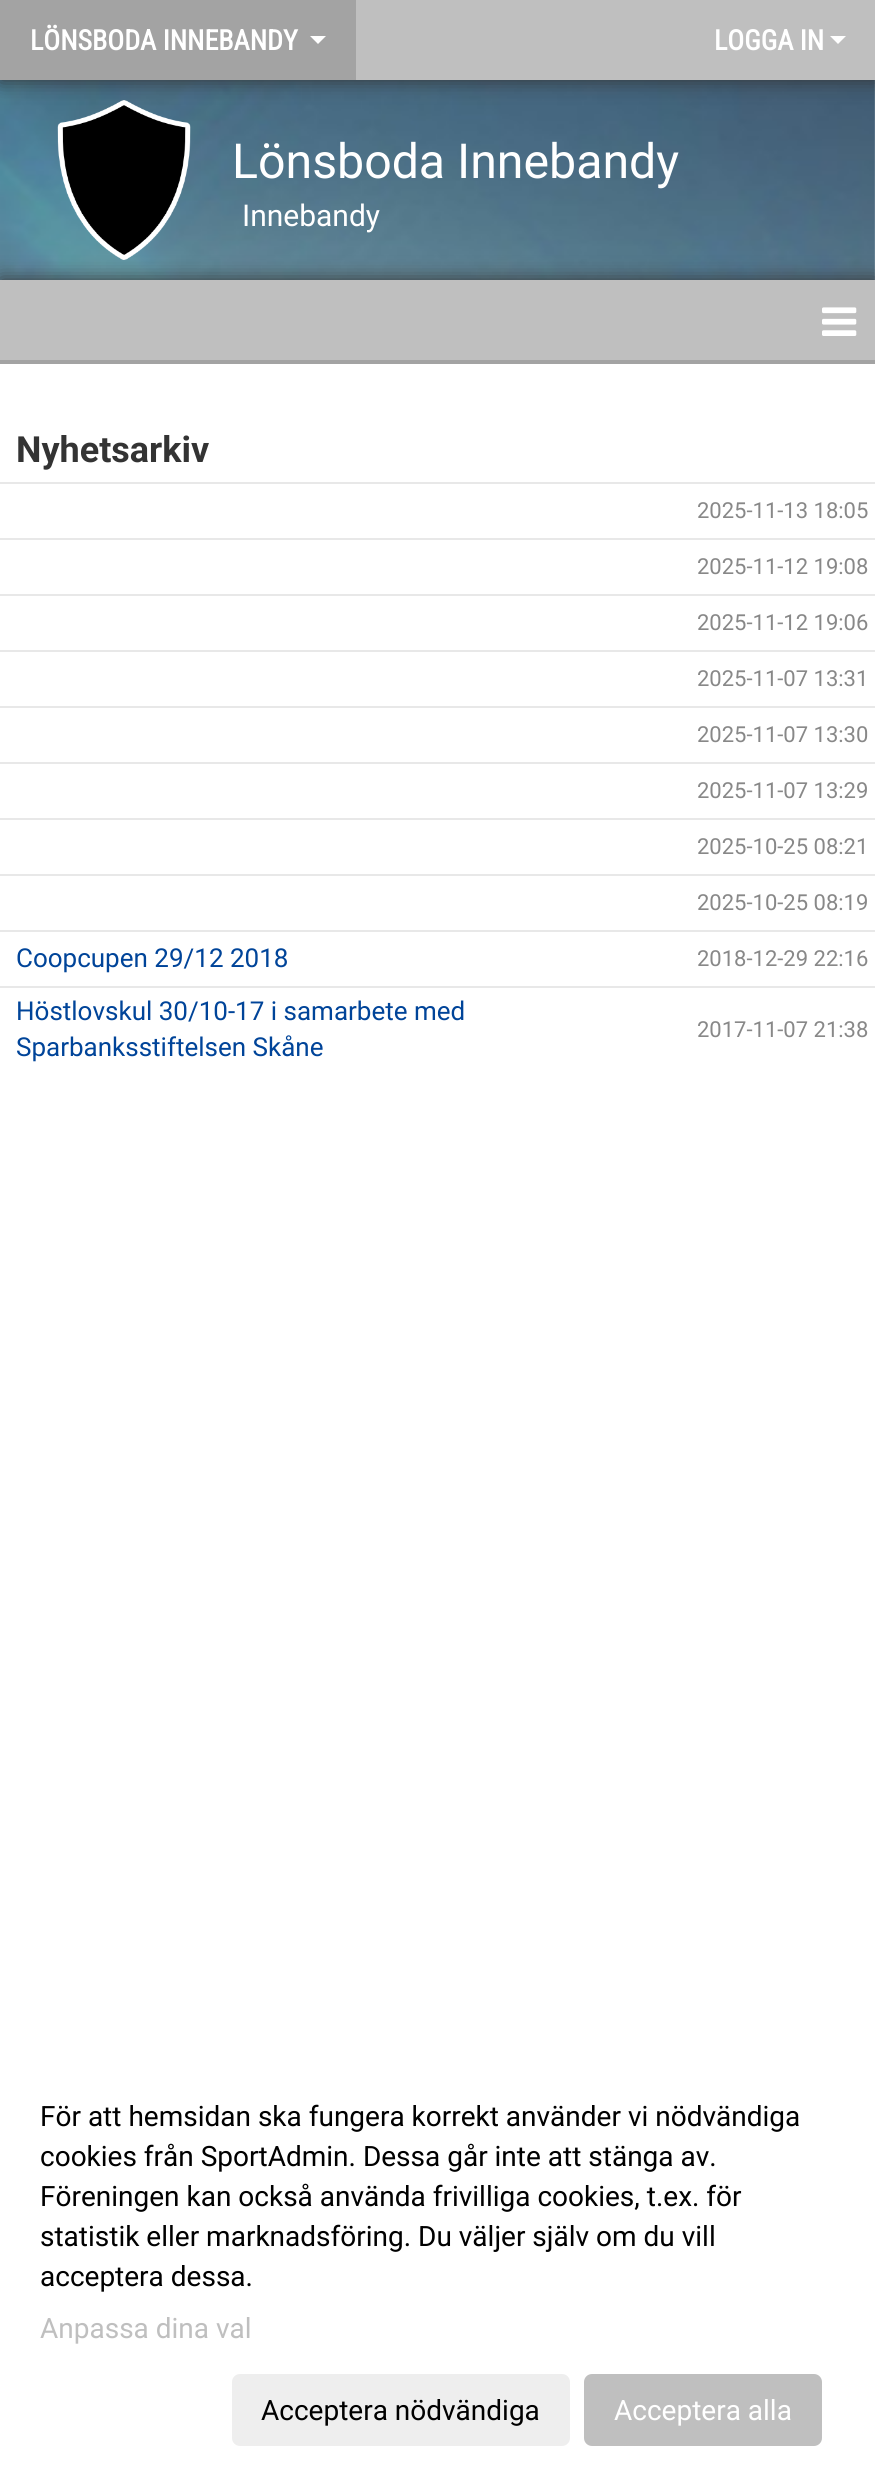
import math
import cairo


def use_color(cr, r, g, b):
  cr.set_source_rgb(r / 255, g / 255, b / 255)

def text(cr, x, y, s, family, size, color, bold=False, italic=False):
  cr.select_font_face(family, cairo.FONT_SLANT_ITALIC if italic else cairo.FONT_SLANT_NORMAL, cairo.FONT_WEIGHT_BOLD if bold else cairo.FONT_WEIGHT_NORMAL)
  cr.set_font_size(size)
  use_color(cr, *color)
  cr.move_to(x, y)
  cr.show_text(s)

def box(cr, x, y, w, h, *color):
  use_color(cr, *color)
  cr.rectangle(x, y, w, h)
  cr.fill()

def round_rect(cr, x, y, w, h, r):
  cr.new_sub_path()
  for i, (u, v) in enumerate([(x + w - r, y + h - r), (x + r, y + h - r), (x + r, y + r), (x + w - r, y + r)]):
    cr.arc(u, v, r, i * math.pi / 2, (i + 1) * math.pi / 2)
  cr.close_path()

def shadow(cr, x, y, w, h, r, blur, alpha):
  cr.push_group_with_content(cairo.CONTENT_ALPHA)
  cr.set_operator(cairo.OPERATOR_SOURCE)
  for i in range(15, -16, -2):
    e = blur * i / 6
    if min(w, h) + 2 * e > 0:
      cr.set_source_rgba(0, 0, 0, alpha * math.erfc((i - 1) / 8.5) / 2)
      round_rect(cr, x - e, y - e, w + 2 * e, h + 2 * e, max(0, min(r + e + blur * .6, min(w, h) / 2 + e)))
      cr.fill()
  cr.mask(cr.pop_group())

def picture(cr, path, x, y, w, h):
  cr.save()
  cr.set_source_surface(cairo.ImageSurface.create_from_png(path), x, y)
  cr.rectangle(x, y, w, h)
  cr.fill()
  cr.restore()

def draw(cr):
  use_color(cr, 255, 255, 255)
  cr.paint()
  picture(cr, "img_01.png", 0, 80, 875, 200)
  use_color(cr, 51, 51, 51)
  shadow(cr, 0, 0, 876, 80, 0, 10, 1)
  box(cr, 356, 0, 519, 80, 191, 191, 191)
  box(cr, 0, 0, 356, 80, 163, 163, 163)
  use_color(cr, 255, 255, 255)
  cr.new_path()
  cr.move_to(310, 36)
  cr.line_to(326, 36)
  cr.line_to(318, 44)
  cr.close_path()
  cr.fill()
  cr.new_path()
  cr.move_to(830, 36)
  cr.line_to(846, 36)
  cr.line_to(838, 44)
  cr.close_path()
  cr.fill()
  use_color(cr, 51, 51, 51)
  shadow(cr, 0, 280, 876, 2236, 0, 10, 1)
  picture(cr, "img_02.png", 57, 100, 134, 160)
  box(cr, 0, 364, 875, 2122, 255, 255, 255)
  box(cr, 0, 280, 875, 80, 191, 191, 191)
  box(cr, 0, 360, 875, 4, 163, 163, 163)
  picture(cr, "img_03.png", 822, 307, 35, 29)
  box(cr, 0, 482, 875, 2, 232, 232, 232)
  box(cr, 0, 538, 875, 2, 232, 232, 232)
  box(cr, 0, 594, 875, 2, 232, 232, 232)
  box(cr, 0, 650, 875, 2, 232, 232, 232)
  box(cr, 0, 706, 875, 2, 232, 232, 232)
  box(cr, 0, 762, 875, 2, 232, 232, 232)
  box(cr, 0, 818, 875, 2, 232, 232, 232)
  box(cr, 0, 874, 875, 2, 232, 232, 232)
  box(cr, 0, 930, 875, 2, 232, 232, 232)
  box(cr, 0, 986, 875, 2, 232, 232, 232)
  use_color(cr, 238, 238, 238)
  round_rect(cr, 232, 2374, 338, 72, 8)
  cr.fill()
  use_color(cr, 191, 191, 191)
  round_rect(cr, 584, 2374, 238, 72, 8)
  cr.fill()
  text(cr, 30, 50, "LÖNSBODA INNEBANDY", "Roboto Condensed", 28, (255, 255, 255), bold=True)
  text(cr, 714, 50, "LOGGA IN", "Roboto Condensed", 28, (255, 255, 255), bold=True)
  text(cr, 232, 178, "Lönsboda Innebandy", "Roboto", 48.25, (255, 255, 255))
  text(cr, 242, 226, "Innebandy", "Roboto", 30, (255, 255, 255))
  text(cr, 16, 462, "Nyhetsarkiv", "Roboto", 36, (51, 51, 51), bold=True)
  text(cr, 697, 518, "2025-11-13 18:05", "Roboto", 22, (136, 136, 136))
  text(cr, 697, 574, "2025-11-12 19:08", "Roboto", 22, (136, 136, 136))
  text(cr, 697, 630, "2025-11-12 19:06", "Roboto", 22, (136, 136, 136))
  text(cr, 697, 686, "2025-11-07 13:31", "Roboto", 22, (136, 136, 136))
  text(cr, 697, 742, "2025-11-07 13:30", "Roboto", 22, (136, 136, 136))
  text(cr, 697, 798, "2025-11-07 13:29", "Roboto", 22, (136, 136, 136))
  text(cr, 697, 854, "2025-10-25 08:21", "Roboto", 22, (136, 136, 136))
  text(cr, 697, 910, "2025-10-25 08:19", "Roboto", 22, (136, 136, 136))
  text(cr, 16, 967, "Coopcupen 29/12 2018", "Roboto", 26, (0, 68, 153))
  text(cr, 697, 966, "2018-12-29 22:16", "Roboto", 22, (136, 136, 136))
  text(cr, 16, 1020, "Höstlovskul 30/10-17 i samarbete med", "Roboto", 26, (0, 68, 153))
  text(cr, 16, 1056, "Sparbanksstiftelsen Skåne", "Roboto", 26, (0, 68, 153))
  text(cr, 697, 1037, "2017-11-07 21:38", "Roboto", 22, (136, 136, 136))
  text(cr, 40, 2126, "För att hemsidan ska fungera korrekt använder vi nödvändiga", "Roboto", 28, (0, 0, 0))
  text(cr, 40, 2166, "cookies från SportAdmin. Dessa går inte att stänga av.", "Roboto", 28, (0, 0, 0))
  text(cr, 40, 2206, "Föreningen kan också använda frivilliga cookies, t.ex. för", "Roboto", 28, (0, 0, 0))
  text(cr, 40, 2246, "statistik eller marknadsföring. Du väljer själv om du vill", "Roboto", 28, (0, 0, 0))
  text(cr, 40, 2286, "acceptera dessa.", "Roboto", 28, (0, 0, 0))
  text(cr, 40, 2338, "Anpassa dina val", "Roboto", 28, (191, 191, 191))
  text(cr, 261, 2420, "Acceptera nödvändiga", "Roboto", 28, (0, 0, 0))
  text(cr, 614, 2420, "Acceptera alla", "Roboto", 28, (255, 255, 255))


surface = cairo.ImageSurface(cairo.FORMAT_RGB24, 875, 2486)
cr = cairo.Context(surface)
options = cairo.FontOptions()
options.set_hint_metrics(cairo.HINT_METRICS_OFF)
options.set_hint_style(cairo.HINT_STYLE_NONE)
cr.set_font_options(options)
cr.set_miter_limit(4)
draw(cr)
surface.write_to_png("out.png")
